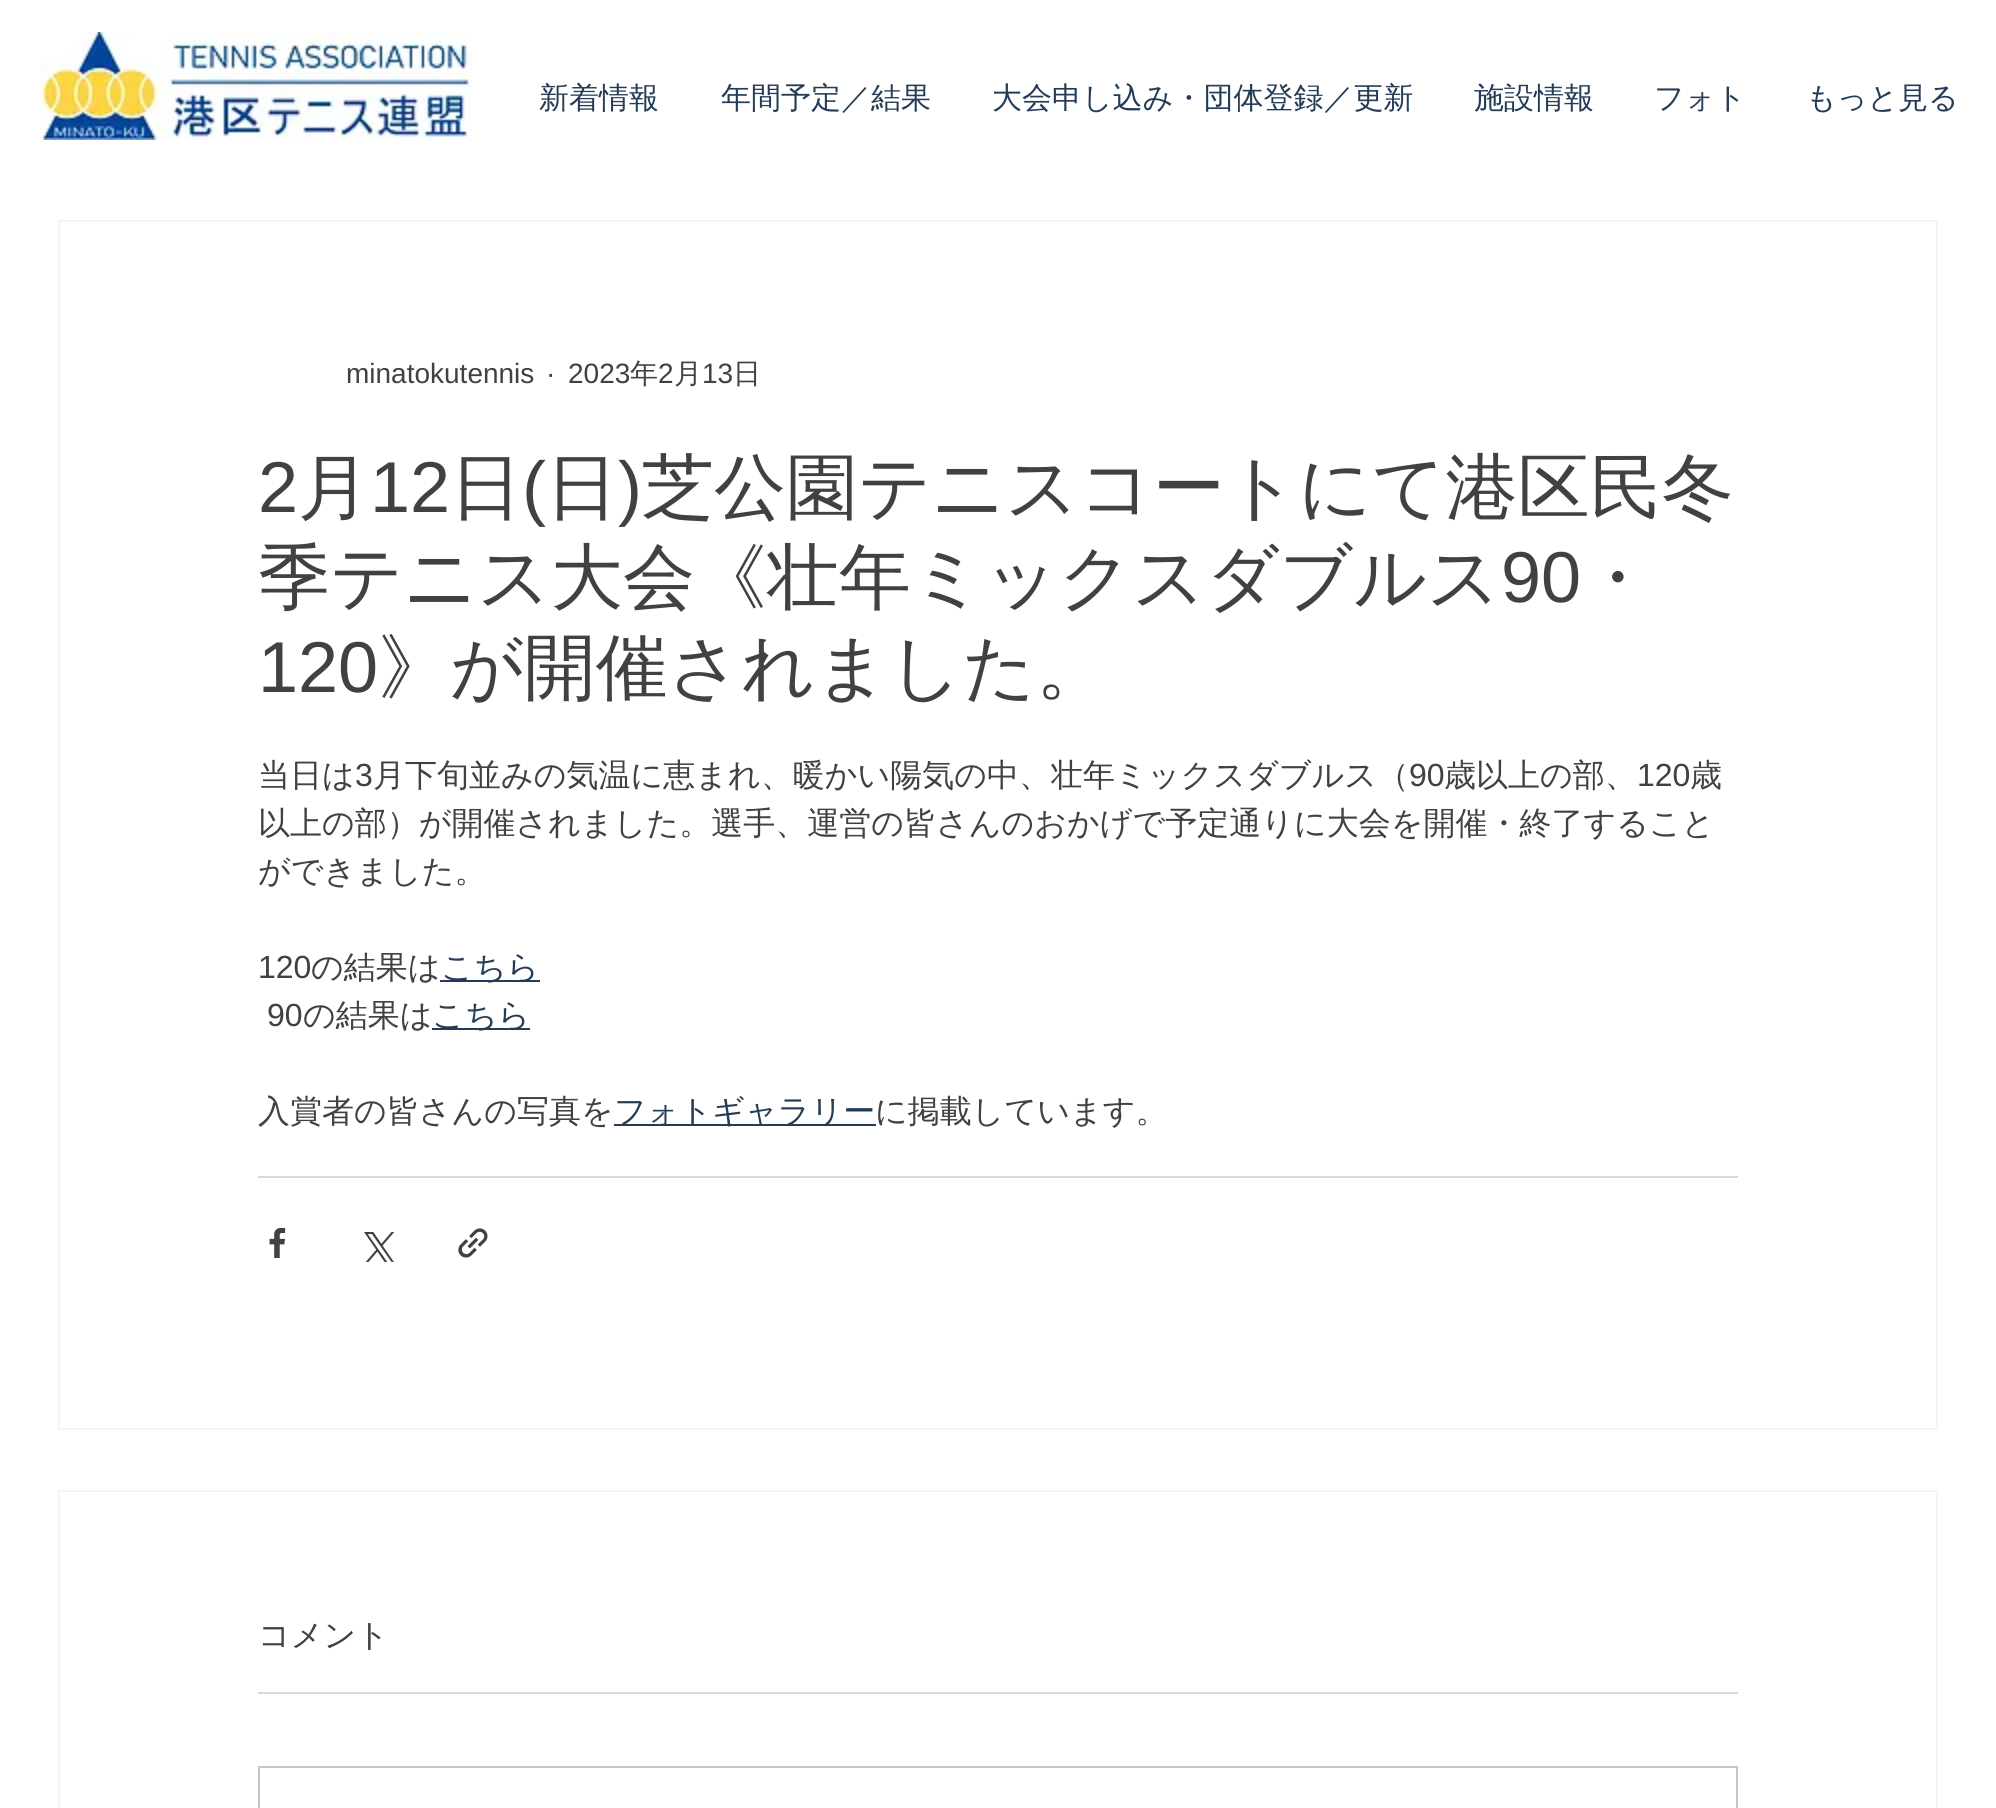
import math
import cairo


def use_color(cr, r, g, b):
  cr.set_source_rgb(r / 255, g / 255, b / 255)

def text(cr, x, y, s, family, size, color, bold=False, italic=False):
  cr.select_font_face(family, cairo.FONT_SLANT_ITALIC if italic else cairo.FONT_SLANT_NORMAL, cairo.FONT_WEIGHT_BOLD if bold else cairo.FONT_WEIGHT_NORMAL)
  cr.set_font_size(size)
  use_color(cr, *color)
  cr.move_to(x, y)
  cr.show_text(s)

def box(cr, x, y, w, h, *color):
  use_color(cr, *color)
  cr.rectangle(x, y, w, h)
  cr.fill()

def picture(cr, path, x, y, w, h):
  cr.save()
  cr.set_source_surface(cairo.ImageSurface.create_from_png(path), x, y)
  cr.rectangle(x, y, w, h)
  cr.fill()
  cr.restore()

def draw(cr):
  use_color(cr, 255, 255, 255)
  cr.paint()
  picture(cr, "img_01.png", 40, 32, 432, 108)
  cr.rectangle(59, 221, 1878, 1208)
  use_color(cr, 245, 245, 245)
  cr.stroke()
  box(cr, 440, 980, 100, 2, 37, 60, 87)
  box(cr, 432, 1028, 98, 2, 37, 60, 87)
  box(cr, 614, 1124, 262, 2, 37, 60, 87)
  box(cr, 258, 1176, 1480, 2, 217, 217, 217)
  picture(cr, "img_02.png", 269, 1228, 17, 30)
  picture(cr, "img_03.png", 364, 1232, 30, 30)
  picture(cr, "img_04.png", 458, 1228, 30, 30)
  cr.rectangle(59, 1491, 1878, 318)
  use_color(cr, 245, 245, 245)
  cr.stroke()
  box(cr, 258, 1692, 1480, 2, 217, 217, 217)
  cr.rectangle(259, 1767, 1478, 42)
  use_color(cr, 198, 198, 198)
  cr.stroke()
  text(cr, 539, 108, "新着情報", "WenQuanYi Zen Hei Medium", 30, (37, 60, 87))
  text(cr, 721, 108, "年間予定／結果", "WenQuanYi Zen Hei Medium", 30, (37, 60, 87))
  text(cr, 992, 108, "大会申し込み・団体登録／更新", "WenQuanYi Zen Hei Medium", 30, (37, 60, 87))
  text(cr, 1474, 108, "施設情報", "WenQuanYi Zen Hei Medium", 30, (37, 60, 87))
  text(cr, 1654, 108, "フォト", "WenQuanYi Zen Hei Medium", 30, (37, 60, 87))
  text(cr, 1806, 108, "もっと見る", "WenQuanYi Zen Hei Medium", 30, (37, 60, 87))
  text(cr, 346, 383, "minatokutennis", "Liberation Sans", 28, (65, 65, 65))
  text(cr, 546, 383, "·", "Liberation Sans", 28, (65, 65, 65))
  text(cr, 568, 383, "2023", "Liberation Sans", 28, (65, 65, 65))
  text(cr, 630, 383, "年", "WenQuanYi Zen Hei Medium", 28, (65, 65, 65))
  text(cr, 658, 383, "2", "Liberation Sans", 28, (65, 65, 65))
  text(cr, 674, 383, "月", "WenQuanYi Zen Hei Medium", 28, (65, 65, 65))
  text(cr, 702, 383, "13", "Liberation Sans", 28, (65, 65, 65))
  text(cr, 733, 383, "日", "WenQuanYi Zen Hei Medium", 28, (65, 65, 65))
  text(cr, 258, 512, "2", "Liberation Sans", 72, (65, 65, 65))
  text(cr, 298, 512, "月", "WenQuanYi Zen Hei Medium", 72, (65, 65, 65))
  text(cr, 370, 512, "12", "Liberation Sans", 72, (65, 65, 65))
  text(cr, 450, 512, "日", "WenQuanYi Zen Hei Medium", 72, (65, 65, 65))
  text(cr, 522, 512, "(", "Liberation Sans", 72, (65, 65, 65))
  text(cr, 546, 512, "日", "WenQuanYi Zen Hei Medium", 72, (65, 65, 65))
  text(cr, 618, 512, ")", "Liberation Sans", 72, (65, 65, 65))
  text(cr, 642, 512, "芝公園テニスコートにて港区民冬", "WenQuanYi Zen Hei Medium", 72, (65, 65, 65))
  text(cr, 258, 602, "季テニス大会《壮年ミックスダブルス", "WenQuanYi Zen Hei Medium", 72, (65, 65, 65))
  text(cr, 1501, 602, "90", "Liberation Sans", 72, (65, 65, 65))
  text(cr, 1581, 602, "・", "WenQuanYi Zen Hei Medium", 72, (65, 65, 65))
  text(cr, 258, 692, "120", "Liberation Sans", 72, (65, 65, 65))
  text(cr, 378, 692, "》が開催されました。", "WenQuanYi Zen Hei Medium", 72, (65, 65, 65))
  text(cr, 258, 786, "当日は", "WenQuanYi Zen Hei Medium", 32, (65, 65, 65))
  text(cr, 355, 786, "3", "Liberation Sans", 32, (65, 65, 65))
  text(cr, 373, 786, "月下旬並みの気温に恵まれ、暖かい陽気の中、壮年ミックスダブルス（", "WenQuanYi Zen Hei Medium", 32, (65, 65, 65))
  text(cr, 1409, 786, "90", "Liberation Sans", 32, (65, 65, 65))
  text(cr, 1444, 786, "歳以上の部、", "WenQuanYi Zen Hei Medium", 32, (65, 65, 65))
  text(cr, 1637, 786, "120", "Liberation Sans", 32, (65, 65, 65))
  text(cr, 1690, 786, "歳", "WenQuanYi Zen Hei Medium", 32, (65, 65, 65))
  text(cr, 258, 834, "以上の部）が開催されました。選手、運営の皆さんのおかげで予定通りに大会を開催・終了すること", "WenQuanYi Zen Hei Medium", 32, (65, 65, 65))
  text(cr, 258, 882, "ができました。", "WenQuanYi Zen Hei Medium", 32, (65, 65, 65))
  text(cr, 258, 978, "120", "Liberation Sans", 32, (65, 65, 65))
  text(cr, 311, 978, "の結果は", "WenQuanYi Zen Hei Medium", 32, (65, 65, 65))
  text(cr, 441, 978, "こちら", "WenQuanYi Zen Hei Medium", 32, (37, 60, 87))
  text(cr, 267, 1026, "90", "Liberation Sans", 32, (65, 65, 65))
  text(cr, 303, 1026, "の結果は", "WenQuanYi Zen Hei Medium", 32, (65, 65, 65))
  text(cr, 432, 1026, "こちら", "WenQuanYi Zen Hei Medium", 32, (37, 60, 87))
  text(cr, 258, 1122, "入賞者の皆さんの写真を", "WenQuanYi Zen Hei Medium", 32, (65, 65, 65))
  text(cr, 614, 1122, "フォトギャラリー", "WenQuanYi Zen Hei Medium", 32, (37, 60, 87))
  text(cr, 875, 1122, "に掲載しています。", "WenQuanYi Zen Hei Medium", 32, (65, 65, 65))
  text(cr, 258, 1646, "コメント", "WenQuanYi Zen Hei Medium", 32, (65, 65, 65))


surface = cairo.ImageSurface(cairo.FORMAT_RGB24, 1996, 1808)
cr = cairo.Context(surface)
options = cairo.FontOptions()
options.set_hint_metrics(cairo.HINT_METRICS_OFF)
options.set_hint_style(cairo.HINT_STYLE_NONE)
cr.set_font_options(options)
cr.set_miter_limit(4)
draw(cr)
surface.write_to_png("out.png")
